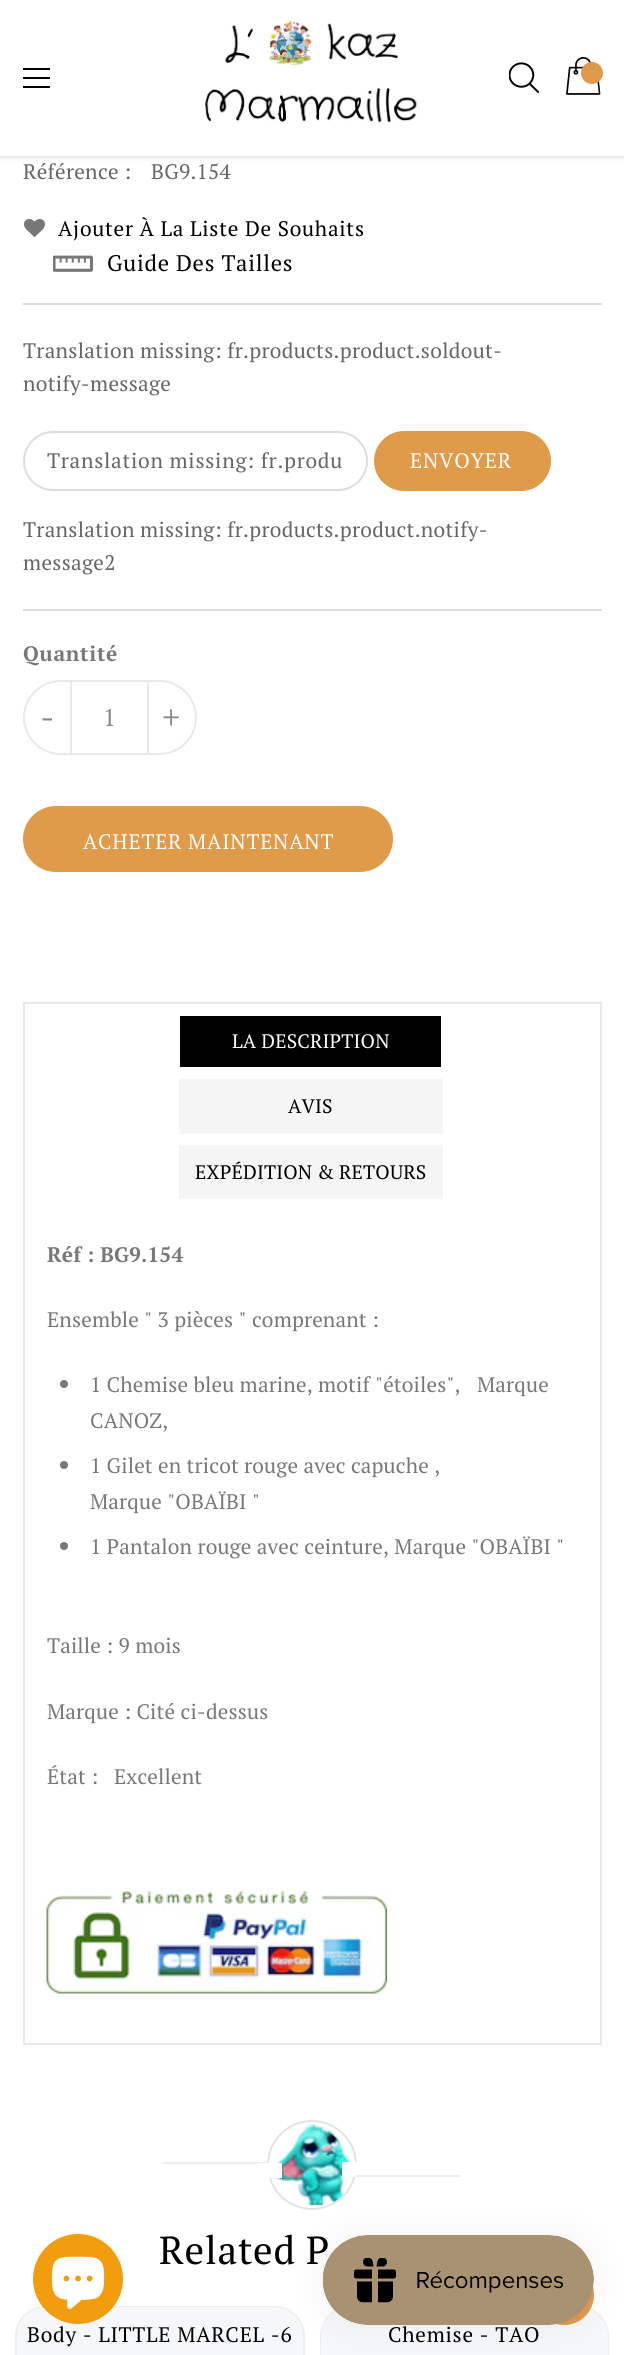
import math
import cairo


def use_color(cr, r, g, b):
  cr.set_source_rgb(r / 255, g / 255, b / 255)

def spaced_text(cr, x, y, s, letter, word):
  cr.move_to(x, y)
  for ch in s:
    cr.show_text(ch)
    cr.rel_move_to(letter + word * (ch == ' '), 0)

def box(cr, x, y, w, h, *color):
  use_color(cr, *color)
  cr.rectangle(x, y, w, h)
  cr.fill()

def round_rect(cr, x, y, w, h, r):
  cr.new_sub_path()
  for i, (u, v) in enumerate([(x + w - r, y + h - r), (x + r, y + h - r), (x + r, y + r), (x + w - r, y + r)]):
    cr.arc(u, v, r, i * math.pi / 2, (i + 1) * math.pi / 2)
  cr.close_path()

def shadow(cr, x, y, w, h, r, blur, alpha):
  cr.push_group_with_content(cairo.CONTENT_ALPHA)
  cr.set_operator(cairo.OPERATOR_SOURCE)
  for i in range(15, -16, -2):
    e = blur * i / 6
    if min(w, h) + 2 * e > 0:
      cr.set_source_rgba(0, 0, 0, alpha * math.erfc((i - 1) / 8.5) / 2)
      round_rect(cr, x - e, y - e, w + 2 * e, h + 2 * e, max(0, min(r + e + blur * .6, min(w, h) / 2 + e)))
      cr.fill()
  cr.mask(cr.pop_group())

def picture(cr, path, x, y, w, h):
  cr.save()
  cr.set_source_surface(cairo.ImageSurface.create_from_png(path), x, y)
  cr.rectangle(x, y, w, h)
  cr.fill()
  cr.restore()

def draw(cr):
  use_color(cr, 255, 255, 255)
  cr.paint()
  use_color(cr, 0, 0, 0)
  shadow(cr, 0, 0, 624, 156, 0, 3, 0.2)
  box(cr, 0, 0, 624, 156, 255, 255, 255)
  box(cr, 23, 68, 27, 2, 0, 0, 0)
  box(cr, 23, 77, 27, 2, 0, 0, 0)
  box(cr, 23, 86, 27, 2, 0, 0, 0)
  picture(cr, "img_01.png", 205, 19, 212, 104)
  picture(cr, "img_02.png", 509, 62, 31, 31)
  picture(cr, "img_03.png", 566, 57, 35, 38)
  use_color(cr, 223, 154, 74)
  cr.arc(592, 73, 11, 0, 2 * math.pi)
  cr.fill()
  picture(cr, "img_04.png", 24, 219, 21, 18)
  picture(cr, "img_05.png", 53, 255, 40, 17)
  box(cr, 23, 303, 579, 2, 221, 221, 221)
  box(cr, 23, 609, 579, 2, 221, 221, 221)
  round_rect(cr, 24, 432, 343, 58, 29)
  cr.stroke()
  use_color(cr, 223, 154, 74)
  round_rect(cr, 375, 432, 175, 58, 29)
  cr.fill_preserve()
  cr.stroke()
  cr.new_path()
  cr.move_to(60.5, 681)
  cr.line_to(71, 681)
  cr.line_to(71, 754)
  cr.line_to(60.5, 754)
  cr.curve_to(40.5, 754, 24, 737.5, 24, 717.5)
  cr.curve_to(24, 697.5, 40.5, 681, 60.5, 681)
  cr.close_path()
  use_color(cr, 233, 233, 233)
  cr.stroke()
  box(cr, 72, 680, 75, 2, 233, 233, 233)
  box(cr, 72, 753, 75, 2, 233, 233, 233)
  cr.new_path()
  cr.move_to(148, 681)
  cr.line_to(159.5, 681)
  cr.curve_to(179.5, 681, 196, 697.5, 196, 717.5)
  cr.curve_to(196, 737.5, 179.5, 754, 159.5, 754)
  cr.line_to(148, 754)
  cr.close_path()
  cr.stroke()
  use_color(cr, 223, 154, 74)
  round_rect(cr, 23, 806, 370, 66, 33)
  cr.fill()
  cr.rectangle(24, 1003, 577, 1041)
  use_color(cr, 233, 233, 233)
  cr.stroke()
  box(cr, 180, 1016, 261, 51, 0, 0, 0)
  box(cr, 179, 1079, 264, 55, 245, 245, 245)
  box(cr, 179, 1145, 264, 54, 245, 245, 245)
  use_color(cr, 120, 120, 120)
  cr.arc(64, 1384, 4, 0, 2 * math.pi)
  cr.fill()
  cr.arc(64, 1465, 4, 0, 2 * math.pi)
  cr.fill()
  cr.arc(64, 1546, 4, 0, 2 * math.pi)
  cr.fill()
  picture(cr, "img_06.png", 46, 1888, 341, 106)
  picture(cr, "img_07.png", 276, 2124, 74, 82)
  cr.arc(312, 2165, 44, 0, 2 * math.pi)
  use_color(cr, 228, 228, 228)
  cr.stroke()
  box(cr, 164, 2162, 105, 2, 238, 238, 238)
  box(cr, 258, 2163, 24, 15, 255, 255, 255)
  box(cr, 342, 2162, 15, 15, 255, 255, 255)
  box(cr, 356, 2175, 105, 2, 238, 238, 238)
  round_rect(cr, 16, 2307, 288, 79, 29)
  cr.stroke()
  use_color(cr, 246, 247, 249)
  cr.new_path()
  cr.move_to(46, 2307)
  cr.line_to(274, 2307)
  cr.curve_to(290, 2307, 303, 2320, 303, 2336)
  cr.line_to(303, 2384)
  cr.line_to(17, 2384)
  cr.line_to(17, 2336)
  cr.curve_to(17, 2320, 30, 2307, 46, 2307)
  cr.close_path()
  cr.fill()
  round_rect(cr, 321, 2307, 287, 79, 29)
  use_color(cr, 238, 238, 238)
  cr.stroke()
  use_color(cr, 246, 247, 249)
  cr.new_path()
  cr.move_to(350, 2307)
  cr.line_to(579, 2307)
  cr.curve_to(595, 2307, 608, 2320, 608, 2336)
  cr.line_to(608, 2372)
  cr.line_to(321, 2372)
  cr.line_to(321, 2336)
  cr.curve_to(321, 2320, 334, 2307, 350, 2307)
  cr.close_path()
  cr.fill()
  use_color(cr, 223, 154, 74)
  cr.arc(564, 2295, 30, 0, 2 * math.pi)
  cr.fill()
  use_color(cr, 242, 157, 13)
  cr.arc(78, 2279, 45, 0, 2 * math.pi)
  cr.fill()
  picture(cr, "img_08.png", 51, 2256, 54, 53)
  use_color(cr, 0, 0, 0)
  shadow(cr, 323, 2235, 271, 90, 45, 19, 0.05)
  cr.select_font_face("PT Serif")
  cr.set_font_size(21)
  use_color(cr, 102, 102, 102)
  spaced_text(cr, 23, 179, "Référence :", 0.3, 0)
  spaced_text(cr, 151, 179, "BG9.154", 0.3, 0)
  use_color(cr, 0, 0, 0)
  spaced_text(cr, 58, 236, "Ajouter À La Liste De Souhaits", 0.75, 0)
  cr.set_font_size(22.5)
  spaced_text(cr, 107, 271, "Guide Des Tailles", 0.75, 0)
  cr.set_font_size(21)
  use_color(cr, 102, 102, 102)
  spaced_text(cr, 23, 358, "Translation missing: fr.products.product.soldout-", 0.3, 0)
  spaced_text(cr, 23, 391, "notify-message", 0.3, 0)
  spaced_text(cr, 47, 468, "Translation missing: fr.produ", 0.75, 0)
  use_color(cr, 255, 255, 255)
  spaced_text(cr, 410, 468, "ENVOYER", 0.75, 0)
  use_color(cr, 102, 102, 102)
  spaced_text(cr, 23, 537, "Translation missing: fr.products.product.notify-", 0.3, 0)
  spaced_text(cr, 23, 570, "message2", 0.3, 0)
  cr.select_font_face("PT Serif", cairo.FONT_SLANT_NORMAL, cairo.FONT_WEIGHT_BOLD)
  use_color(cr, 120, 120, 120)
  spaced_text(cr, 23, 661, "Quantité", 0.75, 0)
  cr.select_font_face("PT Serif")
  cr.set_font_size(34)
  use_color(cr, 136, 136, 136)
  spaced_text(cr, 40, 729, "-", 0.75, 0)
  cr.set_font_size(24)
  spaced_text(cr, 103, 726, "1", 0.75, 0)
  cr.set_font_size(34)
  spaced_text(cr, 162, 729, "+", 0.75, 0)
  cr.set_font_size(21)
  use_color(cr, 255, 255, 255)
  spaced_text(cr, 83, 849, "ACHETER MAINTENANT", 0.75, 0)
  cr.set_font_size(19.5)
  spaced_text(cr, 232, 1048, "LA DESCRIPTION", 0.15, 0)
  use_color(cr, 0, 0, 0)
  spaced_text(cr, 288, 1113, "AVIS", 0.15, 0)
  spaced_text(cr, 195, 1179, "EXPÉDITION & RETOURS", 0.15, 0)
  cr.select_font_face("PT Serif", cairo.FONT_SLANT_NORMAL, cairo.FONT_WEIGHT_BOLD)
  cr.set_font_size(21)
  use_color(cr, 120, 120, 120)
  spaced_text(cr, 47, 1262, "Réf : BG9.154", 0.15, 0)
  cr.select_font_face("PT Serif")
  spaced_text(cr, 47, 1327, "Ensemble \" 3 pièces \" comprenant :", 0.15, 0)
  spaced_text(cr, 90, 1392, "1 Chemise bleu marine, motif \"étoiles\",", 0.15, 0)
  spaced_text(cr, 477, 1392, "Marque", 0.15, 0)
  spaced_text(cr, 90, 1428, "CANOZ,", 0.15, 0)
  spaced_text(cr, 90, 1473, "1 Gilet en tricot rouge avec capuche ,", 0.15, 0)
  spaced_text(cr, 90, 1509, "Marque \"OBAÏBI \"", 0.15, 0)
  spaced_text(cr, 90, 1554, "1 Pantalon rouge avec ceinture, Marque \"OBAÏBI \"", 0.15, 0)
  spaced_text(cr, 47, 1653, "Taille : 9 mois", 0.15, 0)
  spaced_text(cr, 47, 1719, "Marque : Cité ci-dessus", 0.15, 0)
  spaced_text(cr, 47, 1784, "État :", 0.15, 0)
  spaced_text(cr, 114, 1784, "Excellent", 0.15, 0)
  cr.set_font_size(39)
  use_color(cr, 0, 0, 0)
  spaced_text(cr, 159, 2264, "Related P", 0.75, 0)
  cr.set_font_size(21)
  spaced_text(cr, 27, 2342, "Body - LITTLE MARCEL -6", 0.75, 0)
  spaced_text(cr, 388, 2342, "Chemise - TAO", 0.75, 0)
  picture(cr, "img_09.png", 322, 2235, 272, 90)


surface = cairo.ImageSurface(cairo.FORMAT_RGB24, 624, 2355)
cr = cairo.Context(surface)
options = cairo.FontOptions()
options.set_hint_metrics(cairo.HINT_METRICS_OFF)
options.set_hint_style(cairo.HINT_STYLE_NONE)
cr.set_font_options(options)
cr.set_miter_limit(4)
draw(cr)
surface.write_to_png("out.png")
